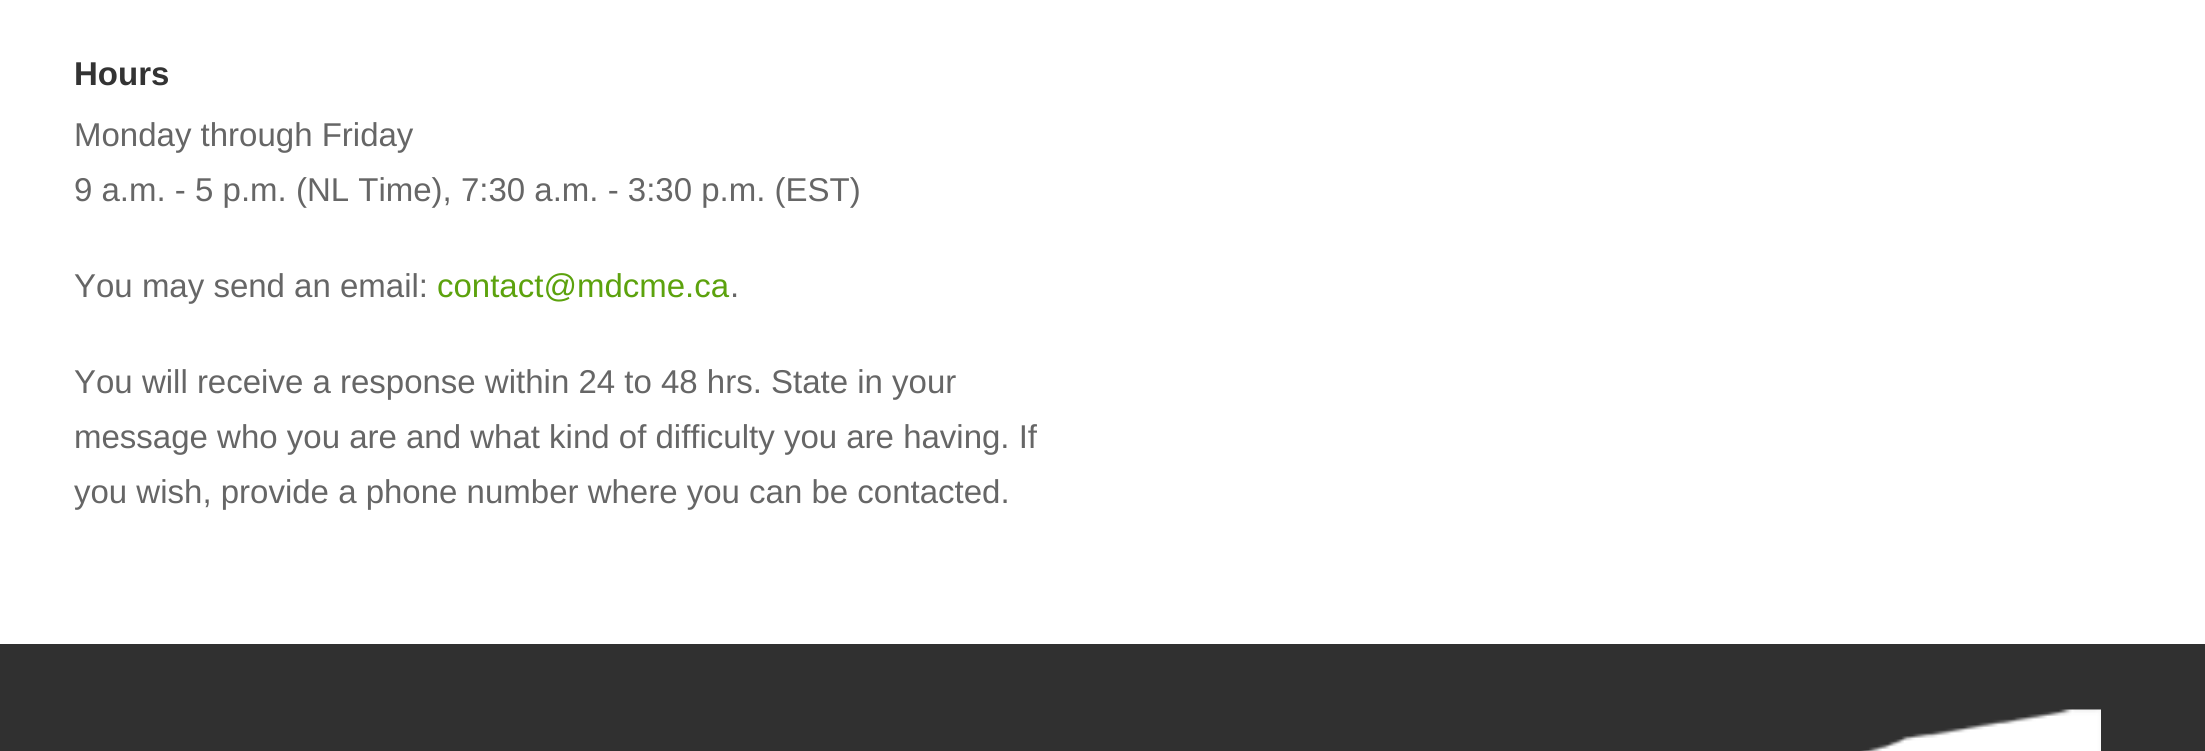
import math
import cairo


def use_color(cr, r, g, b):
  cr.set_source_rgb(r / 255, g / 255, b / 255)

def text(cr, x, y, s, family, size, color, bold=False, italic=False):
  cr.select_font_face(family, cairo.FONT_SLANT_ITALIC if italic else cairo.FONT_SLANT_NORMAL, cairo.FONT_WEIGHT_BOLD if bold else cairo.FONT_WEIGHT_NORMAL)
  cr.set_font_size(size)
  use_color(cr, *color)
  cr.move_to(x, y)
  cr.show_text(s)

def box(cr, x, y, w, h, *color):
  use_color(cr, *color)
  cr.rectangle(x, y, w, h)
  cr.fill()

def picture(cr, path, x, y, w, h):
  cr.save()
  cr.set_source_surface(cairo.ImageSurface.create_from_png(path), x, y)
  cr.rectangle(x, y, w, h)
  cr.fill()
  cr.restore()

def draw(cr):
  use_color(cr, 255, 255, 255)
  cr.paint()
  box(cr, 0, 644, 2205, 107, 48, 48, 48)
  picture(cr, "img_01.png", 1860, 709, 241, 42)
  text(cr, 74, 85, "Hours", "Liberation Sans", 33, (51, 51, 51), bold=True)
  text(cr, 74, 146, "Monday through Friday", "Liberation Sans", 33, (102, 102, 102))
  text(cr, 74, 201, "9 a.m. - 5 p.m. (NL Time), 7:30 a.m. - 3:30 p.m. (EST)", "Liberation Sans", 33, (102, 102, 102))
  text(cr, 74, 297, "You may send an email:", "Liberation Sans", 33, (102, 102, 102))
  text(cr, 437, 297, "contact@mdcme.ca", "Liberation Sans", 33, (92, 162, 13))
  text(cr, 730, 297, ".", "Liberation Sans", 33, (102, 102, 102))
  text(cr, 74, 393, "You will receive a response within 24 to 48 hrs. State in your", "Liberation Sans", 33, (102, 102, 102))
  text(cr, 74, 448, "message who you are and what kind of difficulty you are having. If", "Liberation Sans", 33, (102, 102, 102))
  text(cr, 74, 503, "you wish, provide a phone number where you can be contacted.", "Liberation Sans", 33, (102, 102, 102))


surface = cairo.ImageSurface(cairo.FORMAT_RGB24, 2205, 751)
cr = cairo.Context(surface)
options = cairo.FontOptions()
options.set_hint_metrics(cairo.HINT_METRICS_OFF)
options.set_hint_style(cairo.HINT_STYLE_NONE)
cr.set_font_options(options)
cr.set_miter_limit(4)
draw(cr)
surface.write_to_png("out.png")
